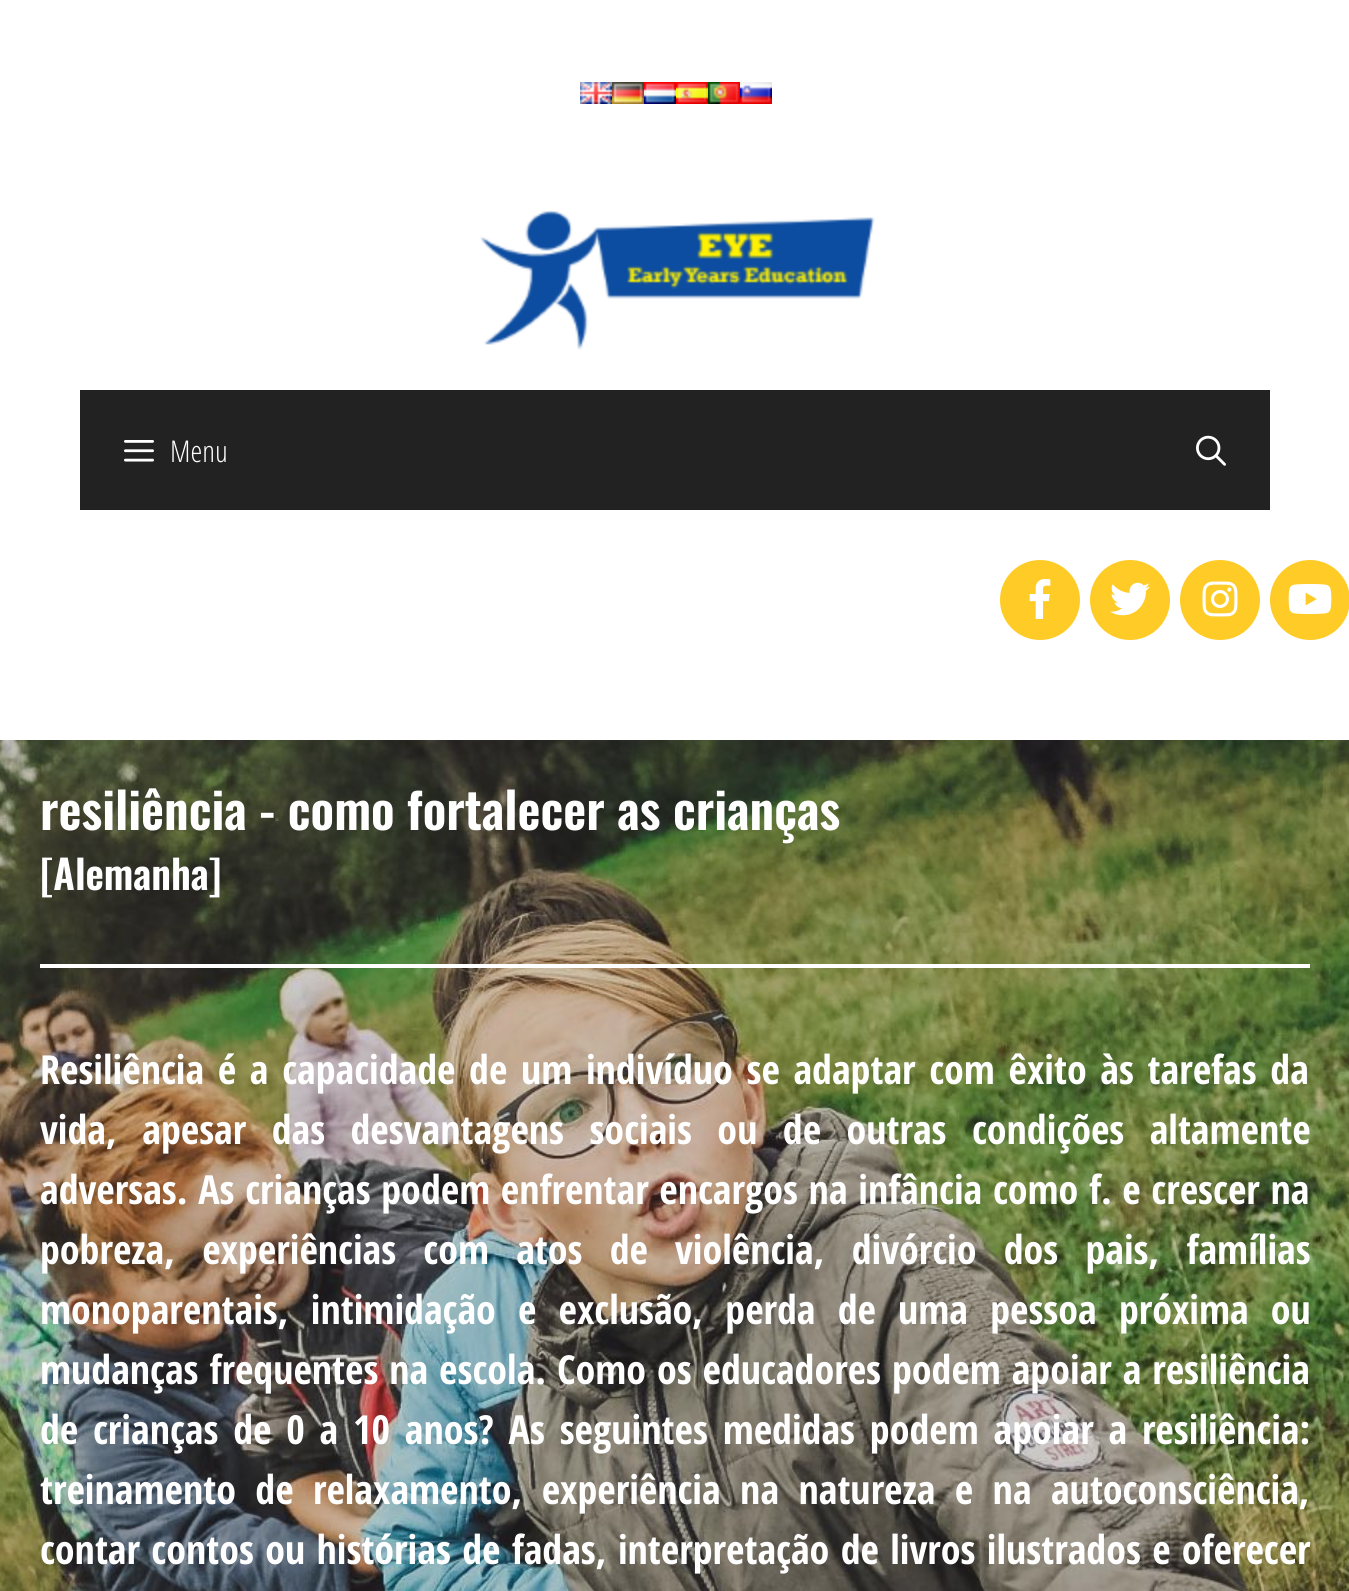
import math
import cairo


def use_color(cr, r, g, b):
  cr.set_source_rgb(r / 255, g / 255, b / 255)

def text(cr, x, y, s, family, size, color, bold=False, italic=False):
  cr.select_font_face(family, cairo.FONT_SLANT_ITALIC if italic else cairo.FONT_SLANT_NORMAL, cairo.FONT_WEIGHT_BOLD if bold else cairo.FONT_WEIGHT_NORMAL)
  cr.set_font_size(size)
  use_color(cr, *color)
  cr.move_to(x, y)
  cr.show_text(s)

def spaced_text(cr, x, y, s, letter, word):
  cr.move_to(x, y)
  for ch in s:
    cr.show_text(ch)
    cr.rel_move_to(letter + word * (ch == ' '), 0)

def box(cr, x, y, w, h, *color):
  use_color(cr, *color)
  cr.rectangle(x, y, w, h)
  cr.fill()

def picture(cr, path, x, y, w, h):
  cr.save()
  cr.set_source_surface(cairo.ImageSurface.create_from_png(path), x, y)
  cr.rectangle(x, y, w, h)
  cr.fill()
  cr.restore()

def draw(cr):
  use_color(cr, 255, 255, 255)
  cr.paint()
  picture(cr, "img_01.png", 580, 82, 32, 22)
  picture(cr, "img_02.png", 612, 82, 32, 22)
  picture(cr, "img_03.png", 644, 82, 32, 22)
  picture(cr, "img_04.png", 676, 82, 32, 22)
  picture(cr, "img_05.png", 708, 82, 32, 22)
  picture(cr, "img_06.png", 740, 82, 32, 22)
  picture(cr, "img_07.png", 480, 210, 395, 140)
  box(cr, 80, 390, 1190, 120, 34, 34, 34)
  picture(cr, "img_08.png", 124, 440, 30, 22)
  picture(cr, "img_09.png", 1196, 435, 30, 31)
  use_color(cr, 255, 203, 39)
  cr.arc(1040, 600, 40, 0, 2 * math.pi)
  cr.fill()
  picture(cr, "img_10.png", 1029, 579, 22, 40)
  cr.arc(1130, 600, 40, 0, 2 * math.pi)
  cr.fill()
  picture(cr, "img_11.png", 1110, 582, 40, 34)
  cr.arc(1220, 600, 40, 0, 2 * math.pi)
  cr.fill()
  picture(cr, "img_12.png", 1202, 581, 36, 36)
  cr.arc(1310, 600, 40, 0, 2 * math.pi)
  cr.fill()
  picture(cr, "img_13.png", 1288, 584, 44, 30)
  picture(cr, "img_14.png", 0, 740, 1349, 851)
  box(cr, 40, 964, 1270, 4, 255, 255, 255)
  text(cr, 170, 462, "Menu", "Open Sans Condensed Light", 30, (255, 255, 255))
  text(cr, 40, 830, "resiliência - como fortalecer as crianças", "Oswald SemiBold", 50, (255, 255, 255))
  text(cr, 40, 890, "[Alemanha]", "Oswald SemiBold", 40, (255, 255, 255))
  cr.select_font_face("Open Sans Condensed", cairo.FONT_SLANT_NORMAL, cairo.FONT_WEIGHT_BOLD)
  spaced_text(cr, 40, 1084, "Resiliência é a capacidade de um indivíduo se adaptar com êxito às tarefas da", 0, 3.75)
  spaced_text(cr, 40, 1144, "vida, apesar das desvantagens sociais ou de outras condições altamente", 0, 15.5)
  spaced_text(cr, 40, 1204, "adversas. As crianças podem enfrentar encargos na infância como f. e crescer na", 0, 0.75)
  spaced_text(cr, 40, 1264, "pobreza, experiências com atos de violência, divórcio dos pais, famílias", 0, 17.25)
  spaced_text(cr, 40, 1324, "monoparentais, intimidação e exclusão, perda de uma pessoa próxima ou", 0, 12.25)
  spaced_text(cr, 40, 1384, "mudanças frequentes na escola. Como os educadores podem apoiar a resiliência", 0, 1)
  spaced_text(cr, 40, 1444, "de crianças de 0 a 10 anos? As seguintes medidas podem apoiar a resiliência:", 0, 4.9)
  spaced_text(cr, 40, 1504, "treinamento de relaxamento, experiência na natureza e na autoconsciência,", 0, 9.5)
  spaced_text(cr, 40, 1564, "contar contos ou histórias de fadas, interpretação de livros ilustrados e oferecer", 0, 1.4)


surface = cairo.ImageSurface(cairo.FORMAT_RGB24, 1349, 1591)
cr = cairo.Context(surface)
options = cairo.FontOptions()
options.set_hint_metrics(cairo.HINT_METRICS_OFF)
options.set_hint_style(cairo.HINT_STYLE_NONE)
cr.set_font_options(options)
cr.set_miter_limit(4)
draw(cr)
surface.write_to_png("out.png")
